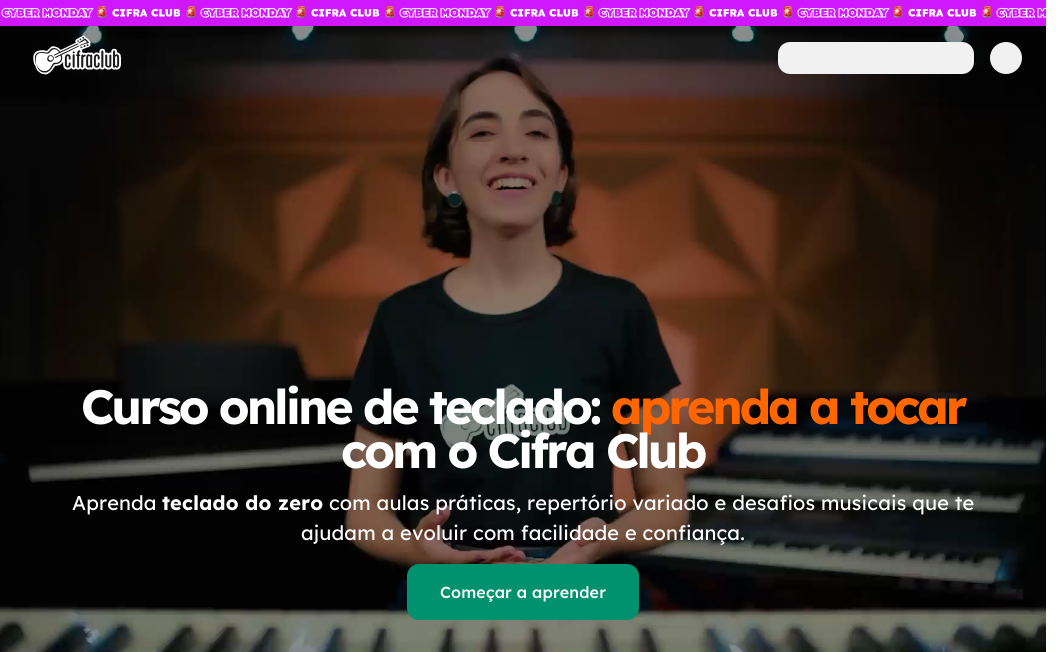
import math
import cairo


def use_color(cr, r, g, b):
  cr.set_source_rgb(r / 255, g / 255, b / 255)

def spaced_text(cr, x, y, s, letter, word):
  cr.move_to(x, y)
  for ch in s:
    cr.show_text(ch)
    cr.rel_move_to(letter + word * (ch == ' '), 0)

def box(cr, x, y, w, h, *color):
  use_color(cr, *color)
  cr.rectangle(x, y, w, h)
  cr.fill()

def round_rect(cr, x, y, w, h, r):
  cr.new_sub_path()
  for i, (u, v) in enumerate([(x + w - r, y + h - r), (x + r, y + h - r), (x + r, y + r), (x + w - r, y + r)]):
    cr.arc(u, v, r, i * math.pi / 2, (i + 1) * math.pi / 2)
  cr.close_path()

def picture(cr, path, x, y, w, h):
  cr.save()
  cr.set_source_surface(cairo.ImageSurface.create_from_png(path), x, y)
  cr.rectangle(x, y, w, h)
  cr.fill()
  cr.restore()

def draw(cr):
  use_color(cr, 255, 255, 255)
  cr.paint()
  box(cr, 0, 0, 1046, 26, 207, 24, 253)
  picture(cr, "img_01.png", 1, 6, 1045, 12)
  picture(cr, "img_03.png", 0, 26, 1046, 626)
  picture(cr, "img_02.png", 33, 35, 88, 40)
  use_color(cr, 241, 241, 241)
  round_rect(cr, 778, 42, 196, 32, 12)
  cr.fill()
  cr.arc(1006, 58, 16, 0, 2 * math.pi)
  cr.fill()
  use_color(cr, 0, 145, 110)
  round_rect(cr, 407, 564, 232, 56, 12)
  cr.fill()
  cr.select_font_face("Lexend Deca", cairo.FONT_SLANT_NORMAL, cairo.FONT_WEIGHT_BOLD)
  cr.set_font_size(48)
  use_color(cr, 255, 255, 255)
  spaced_text(cr, 81, 424, "Curso online de teclado:", -3, 0)
  use_color(cr, 255, 102, 0)
  spaced_text(cr, 611, 424, "aprenda a tocar", -3, 0)
  use_color(cr, 255, 255, 255)
  spaced_text(cr, 341, 468, "com o Cifra Club", -3, 0)
  cr.select_font_face("Lexend Deca")
  cr.set_font_size(20)
  spaced_text(cr, 72, 510, "Aprenda", 0.15, 0)
  cr.select_font_face("Lexend Deca", cairo.FONT_SLANT_NORMAL, cairo.FONT_WEIGHT_BOLD)
  spaced_text(cr, 162, 510, "teclado do zero", 0.15, 0)
  cr.select_font_face("Lexend Deca")
  spaced_text(cr, 329, 510, "com aulas práticas, repertório variado e desafios musicais que te", 0.15, 0)
  spaced_text(cr, 301, 540, "ajudam a evoluir com facilidade e confiança.", 0.15, 0)
  cr.select_font_face("Lexend Deca Medium")
  cr.set_font_size(16)
  spaced_text(cr, 440, 598, "Começar a aprender", 0.15, 0)


surface = cairo.ImageSurface(cairo.FORMAT_RGB24, 1061, 652)
cr = cairo.Context(surface)
options = cairo.FontOptions()
options.set_hint_metrics(cairo.HINT_METRICS_OFF)
options.set_hint_style(cairo.HINT_STYLE_NONE)
cr.set_font_options(options)
cr.set_miter_limit(4)
draw(cr)
surface.write_to_png("out.png")
